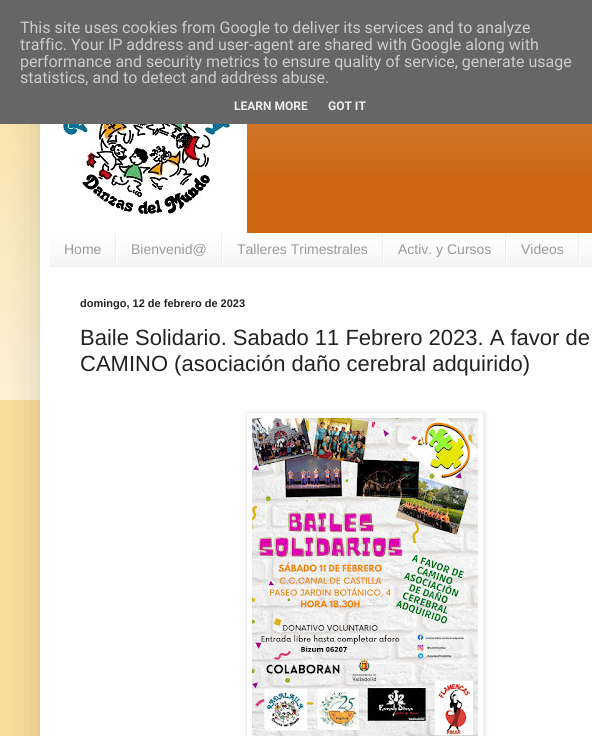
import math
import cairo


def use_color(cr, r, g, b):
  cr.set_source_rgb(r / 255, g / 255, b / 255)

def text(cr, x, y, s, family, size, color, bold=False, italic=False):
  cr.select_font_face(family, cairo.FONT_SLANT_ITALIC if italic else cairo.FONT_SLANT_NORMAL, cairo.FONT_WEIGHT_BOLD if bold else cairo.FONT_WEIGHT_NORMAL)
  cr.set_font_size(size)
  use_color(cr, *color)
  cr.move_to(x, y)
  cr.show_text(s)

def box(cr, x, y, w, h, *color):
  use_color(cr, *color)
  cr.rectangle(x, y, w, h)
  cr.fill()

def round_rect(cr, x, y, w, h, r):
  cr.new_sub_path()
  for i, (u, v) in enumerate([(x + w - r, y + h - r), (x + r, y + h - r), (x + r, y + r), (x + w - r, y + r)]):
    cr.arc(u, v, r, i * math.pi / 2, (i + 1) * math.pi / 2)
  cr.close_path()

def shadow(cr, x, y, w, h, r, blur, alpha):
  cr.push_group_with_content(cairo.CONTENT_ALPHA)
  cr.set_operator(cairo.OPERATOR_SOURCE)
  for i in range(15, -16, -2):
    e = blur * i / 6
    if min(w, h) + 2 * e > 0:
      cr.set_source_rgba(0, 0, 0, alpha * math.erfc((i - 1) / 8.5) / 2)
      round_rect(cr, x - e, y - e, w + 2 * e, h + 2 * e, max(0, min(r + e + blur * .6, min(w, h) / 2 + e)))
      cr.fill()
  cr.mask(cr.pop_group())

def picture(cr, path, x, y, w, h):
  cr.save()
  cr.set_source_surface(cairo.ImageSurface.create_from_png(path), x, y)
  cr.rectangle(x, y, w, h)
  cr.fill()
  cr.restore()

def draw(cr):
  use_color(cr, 249, 221, 153)
  cr.paint()
  picture(cr, "img_01.png", 0, 124, 40, 276)
  use_color(cr, 0, 0, 0)
  shadow(cr, 40, 30, 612, 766, 0, 20, 0.15)
  box(cr, 0, 0, 592, 124, 102, 102, 102)
  box(cr, 40, 124, 552, 612, 255, 255, 255)
  box(cr, 247, 124, 345, 109, 204, 102, 17)
  picture(cr, "img_02.png", 247, 124, 345, 49)
  picture(cr, "img_03.png", 50, 124, 197, 109)
  box(cr, 50, 234, 542, 32, 245, 245, 245)
  picture(cr, "img_04.png", 50, 233, 542, 24)
  box(cr, 50, 266, 542, 1, 238, 238, 238)
  box(cr, 115, 233, 1, 33, 238, 238, 238)
  box(cr, 221, 233, 1, 33, 238, 238, 238)
  box(cr, 116, 244, 1, 22, 255, 255, 255)
  box(cr, 382, 233, 1, 33, 238, 238, 238)
  box(cr, 222, 244, 1, 22, 255, 255, 255)
  box(cr, 505, 233, 1, 33, 238, 238, 238)
  box(cr, 383, 244, 1, 22, 255, 255, 255)
  box(cr, 578, 233, 1, 33, 238, 238, 238)
  box(cr, 506, 244, 1, 22, 255, 255, 255)
  box(cr, 579, 244, 1, 22, 255, 255, 255)
  cr.save()
  cr.set_fill_rule(cairo.FILL_RULE_EVEN_ODD)
  cr.new_path()
  cr.move_to(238, 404)
  cr.line_to(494, 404)
  cr.line_to(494, 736)
  cr.line_to(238, 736)
  cr.close_path()
  cr.move_to(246, 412)
  cr.line_to(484, 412)
  cr.line_to(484, 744)
  cr.line_to(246, 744)
  cr.close_path()
  cr.clip()
  use_color(cr, 0, 0, 0)
  shadow(cr, 247, 413, 238, 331, 0, 2.5, 0.1)
  cr.restore()
  cr.rectangle(246.5, 412.5, 237, 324)
  use_color(cr, 238, 238, 238)
  cr.set_line_width(1)
  cr.stroke()
  picture(cr, "img_05.png", 252, 418, 226, 318)
  text(cr, 20, 33, "This site uses cookies from Google to deliver its services and to analyze", "Roboto", 16, (204, 204, 204))
  text(cr, 20, 50, "traffic. Your IP address and user-agent are shared with Google along with", "Roboto", 16, (204, 204, 204))
  text(cr, 20, 67, "performance and security metrics to ensure quality of service, generate usage", "Roboto", 16, (204, 204, 204))
  text(cr, 20, 83, "statistics, and to detect and address abuse.", "Roboto", 16, (204, 204, 204))
  text(cr, 234, 110, "LEARN MORE", "Roboto", 12, (238, 238, 238), bold=True)
  text(cr, 328, 110, "GOT IT", "Roboto", 12, (238, 238, 238), bold=True)
  text(cr, 64, 254, "Home", "Liberation Sans", 14, (153, 153, 153))
  text(cr, 131, 254, "Bienvenid@", "Liberation Sans", 14, (153, 153, 153))
  text(cr, 237, 254, "Talleres Trimestrales", "Liberation Sans", 14, (153, 153, 153))
  text(cr, 398, 254, "Activ. y Cursos", "Liberation Sans", 14, (153, 153, 153))
  text(cr, 521, 254, "Videos", "Liberation Sans", 14, (153, 153, 153))
  text(cr, 80, 307, "domingo, 12 de febrero de 2023", "Liberation Sans", 11, (34, 34, 34), bold=True)
  text(cr, 80, 345, "Baile Solidario. Sabado 11 Febrero 2023. A favor de", "Liberation Sans", 22, (34, 34, 34))
  text(cr, 80, 371, "CAMINO (asociación daño cerebral adquirido)", "Liberation Sans", 22, (34, 34, 34))


surface = cairo.ImageSurface(cairo.FORMAT_RGB24, 592, 736)
cr = cairo.Context(surface)
options = cairo.FontOptions()
options.set_hint_metrics(cairo.HINT_METRICS_OFF)
options.set_hint_style(cairo.HINT_STYLE_NONE)
cr.set_font_options(options)
cr.set_miter_limit(4)
draw(cr)
surface.write_to_png("out.png")
